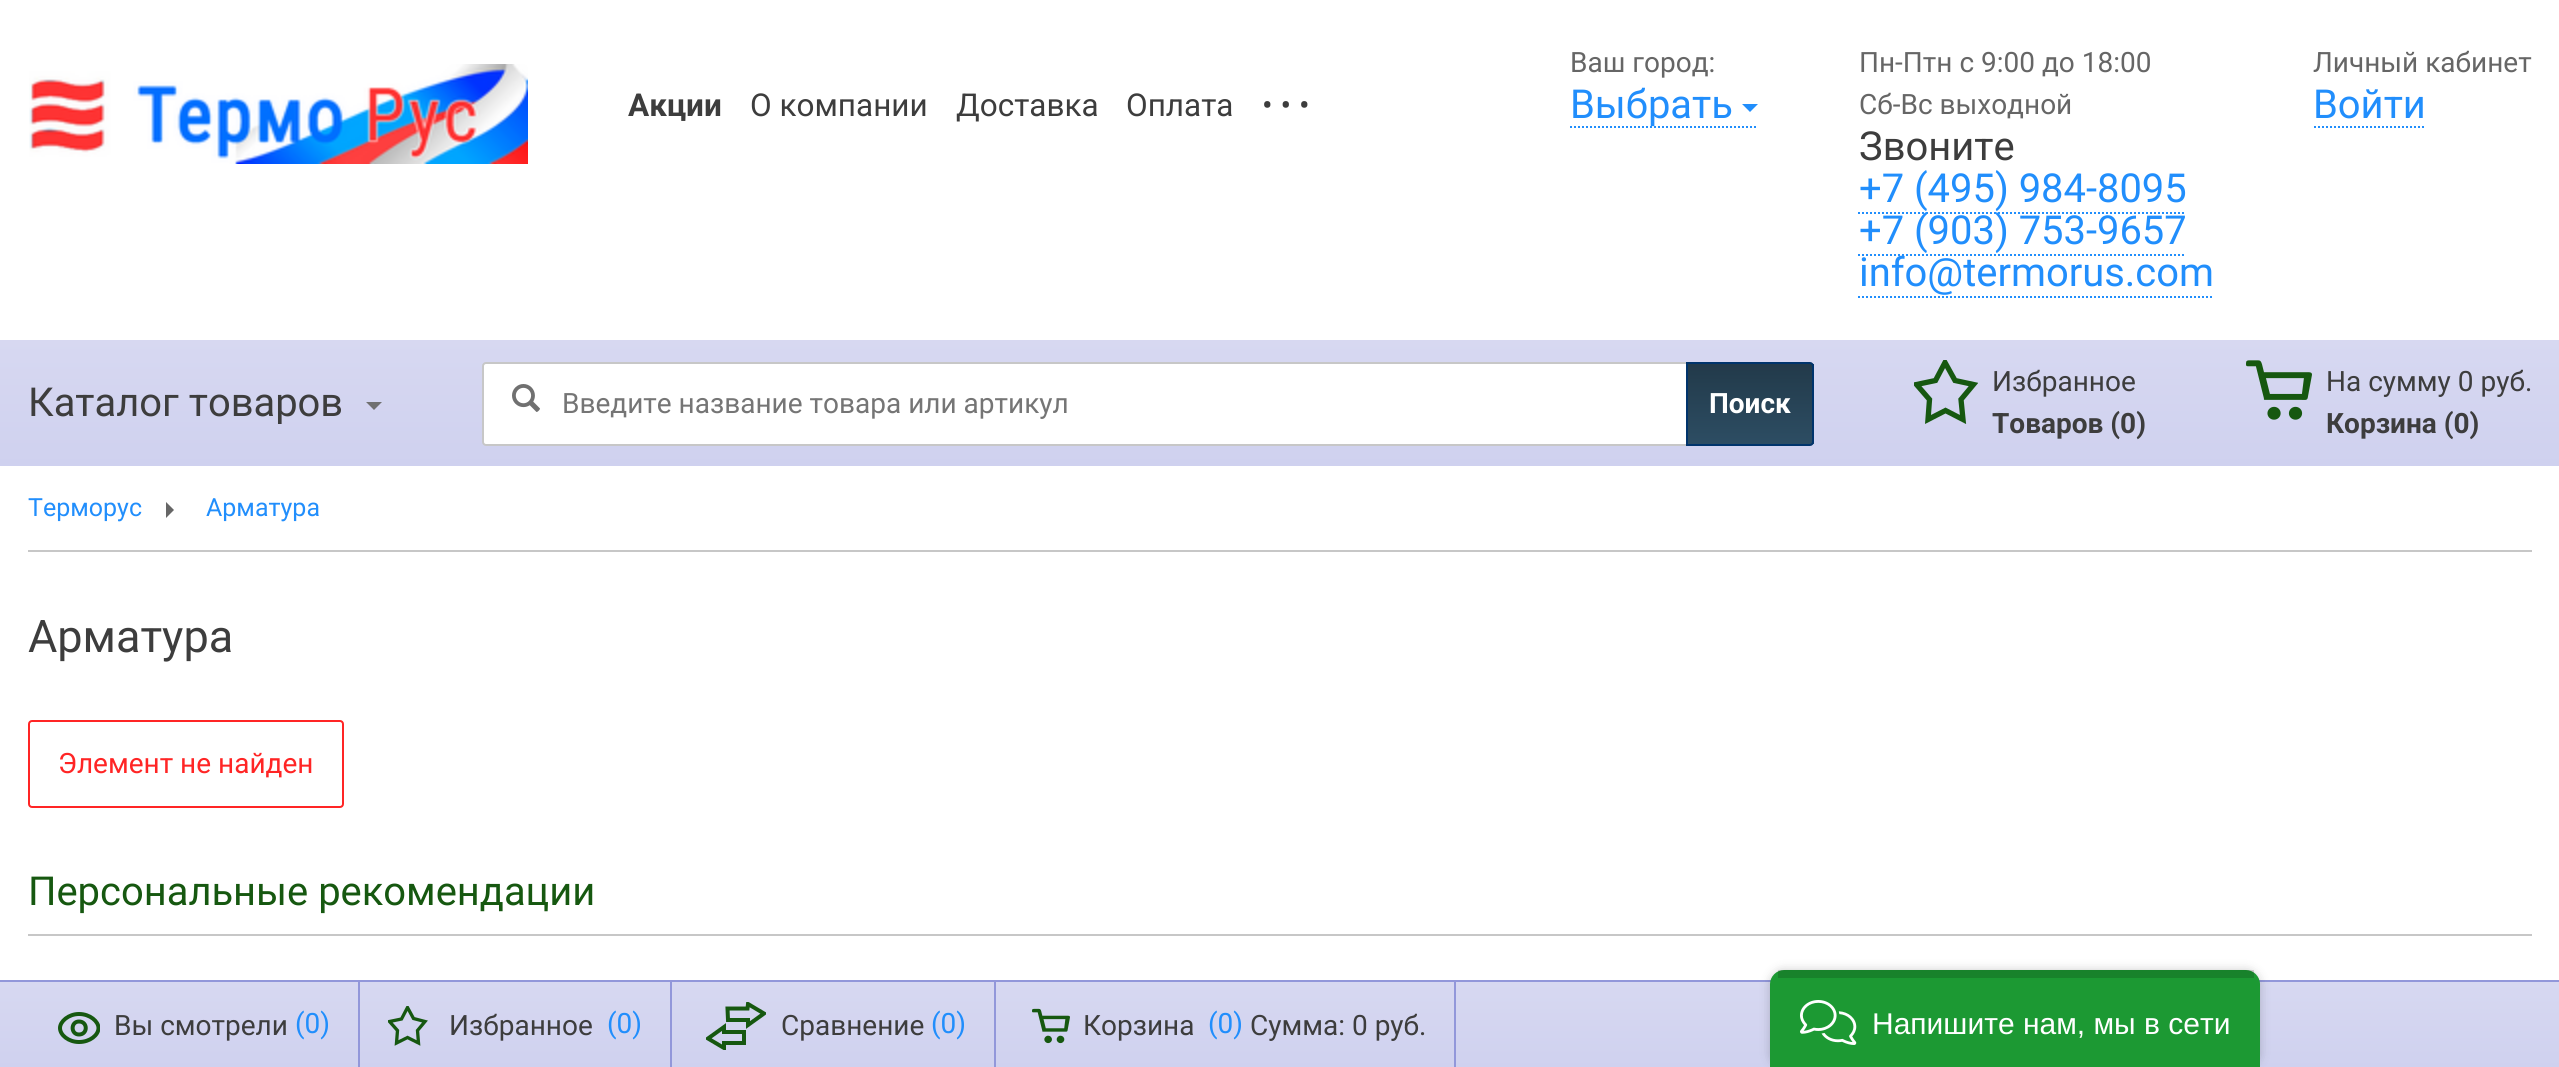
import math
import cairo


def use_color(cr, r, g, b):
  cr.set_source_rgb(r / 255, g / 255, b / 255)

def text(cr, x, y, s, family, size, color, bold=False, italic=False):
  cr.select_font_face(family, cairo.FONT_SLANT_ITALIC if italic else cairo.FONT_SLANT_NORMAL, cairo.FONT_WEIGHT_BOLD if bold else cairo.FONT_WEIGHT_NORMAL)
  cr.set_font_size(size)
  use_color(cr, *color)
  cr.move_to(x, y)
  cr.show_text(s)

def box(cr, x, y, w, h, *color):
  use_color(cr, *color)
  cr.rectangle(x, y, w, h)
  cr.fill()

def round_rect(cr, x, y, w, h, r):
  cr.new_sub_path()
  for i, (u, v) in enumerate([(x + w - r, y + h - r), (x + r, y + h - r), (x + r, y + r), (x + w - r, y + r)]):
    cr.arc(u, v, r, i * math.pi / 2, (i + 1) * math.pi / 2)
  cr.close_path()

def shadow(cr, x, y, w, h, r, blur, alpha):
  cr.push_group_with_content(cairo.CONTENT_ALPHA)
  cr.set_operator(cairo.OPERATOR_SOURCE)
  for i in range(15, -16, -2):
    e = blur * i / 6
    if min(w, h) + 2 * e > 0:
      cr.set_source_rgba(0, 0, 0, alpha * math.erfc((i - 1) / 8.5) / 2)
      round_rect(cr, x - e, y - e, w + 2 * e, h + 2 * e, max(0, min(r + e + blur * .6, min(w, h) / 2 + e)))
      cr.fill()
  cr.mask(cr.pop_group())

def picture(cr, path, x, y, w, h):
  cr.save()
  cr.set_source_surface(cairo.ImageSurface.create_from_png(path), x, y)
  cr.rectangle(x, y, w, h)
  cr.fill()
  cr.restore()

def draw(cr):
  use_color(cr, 255, 255, 255)
  cr.paint()
  picture(cr, "img_01.png", 29, 64, 499, 100)
  cr.new_path()
  cr.move_to(1570, 127)
  cr.line_to(1758, 127)
  use_color(cr, 33, 142, 252)
  cr.set_dash([2, 2])
  cr.stroke()
  cr.new_path()
  cr.move_to(1742, 104)
  cr.line_to(1758, 104)
  cr.line_to(1750, 112)
  cr.close_path()
  cr.fill()
  cr.new_path()
  cr.move_to(1858, 213)
  cr.line_to(2186, 213)
  cr.stroke()
  cr.new_path()
  cr.move_to(1858, 255)
  cr.line_to(2186, 255)
  cr.stroke()
  cr.new_path()
  cr.move_to(1858, 297)
  cr.line_to(2214, 297)
  cr.stroke()
  cr.new_path()
  cr.move_to(2314, 127)
  cr.line_to(2426, 127)
  cr.stroke()
  gradient = cairo.LinearGradient(1280, 340, 1280, 466)
  gradient.add_color_stop_rgba(0, 0.843, 0.847, 0.945, 1)
  gradient.add_color_stop_rgba(1, 0.812, 0.82, 0.937, 1)
  cr.set_source(gradient)
  cr.rectangle(0, 340, 2559, 126)
  cr.fill()
  use_color(cr, 112, 112, 112)
  cr.new_path()
  cr.move_to(366, 402)
  cr.line_to(382, 402)
  cr.line_to(374, 410)
  cr.close_path()
  cr.fill()
  use_color(cr, 255, 255, 255)
  round_rect(cr, 483, 363, 1330, 82, 3)
  cr.fill_preserve()
  use_color(cr, 199, 199, 199)
  cr.set_dash([])
  cr.stroke()
  picture(cr, "img_02.png", 512, 384, 28, 28)
  gradient = cairo.LinearGradient(1750, 364, 1750, 444)
  gradient.add_color_stop_rgba(0, 0.133, 0.227, 0.29, 1)
  gradient.add_color_stop_rgba(1, 0.176, 0.302, 0.388, 1)
  cr.set_source(gradient)
  cr.rectangle(1688, 364, 126, 80)
  cr.fill()
  cr.new_path()
  cr.move_to(1687, 363)
  cr.line_to(1810, 363)
  cr.curve_to(1811.5, 363, 1813, 364.5, 1813, 366)
  cr.line_to(1813, 442)
  cr.curve_to(1813, 443.5, 1811.5, 445, 1810, 445)
  cr.line_to(1687, 445)
  cr.close_path()
  use_color(cr, 0, 52, 108)
  cr.stroke()
  cr.save()
  cr.rectangle(1914, 360, 64, 64)
  cr.clip()
  cr.new_path()
  cr.move_to(1945, 362.5)
  cr.line_to(1955, 380.5)
  cr.line_to(1973.5, 384.5)
  cr.line_to(1961, 399.5)
  cr.line_to(1963, 419.5)
  cr.line_to(1945.5, 410.5)
  cr.line_to(1928, 419.5)
  cr.line_to(1929.5, 399.5)
  cr.line_to(1916.5, 384.5)
  cr.line_to(1935.5, 380.5)
  cr.close_path()
  use_color(cr, 22, 88, 16)
  cr.set_line_width(5.3)
  cr.stroke()
  cr.restore()
  picture(cr, "img_03.png", 2246, 360, 66, 60)
  box(cr, 28, 550, 2504, 2, 199, 199, 199)
  use_color(cr, 102, 102, 102)
  cr.new_path()
  cr.move_to(166, 518)
  cr.line_to(166, 502)
  cr.line_to(174, 510)
  cr.close_path()
  cr.fill()
  round_rect(cr, 29, 721, 314, 86, 3)
  use_color(cr, 255, 37, 37)
  cr.stroke()
  box(cr, 28, 934, 2504, 2, 199, 199, 199)
  gradient = cairo.LinearGradient(1280, 982, 1280, 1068)
  gradient.add_color_stop_rgba(0, 0.843, 0.847, 0.945, 1)
  gradient.add_color_stop_rgba(1, 0.812, 0.82, 0.937, 1)
  cr.set_source(gradient)
  cr.rectangle(0, 982, 2559, 85)
  cr.fill()
  box(cr, 0, 980, 2559, 2, 146, 151, 218)
  box(cr, 358, 982, 2, 85, 146, 151, 218)
  cr.save()
  cr.rectangle(56, 1010, 44, 34)
  cr.clip()
  cr.new_path()
  cr.move_to(79, 1014)
  cr.curve_to(68.5, 1014, 60, 1021.5, 60, 1028)
  cr.curve_to(60, 1035, 68.5, 1042, 79, 1042)
  cr.curve_to(90, 1042, 98.5, 1035, 98.5, 1028)
  cr.curve_to(98.5, 1021.5, 90, 1014, 79, 1014)
  cr.close_path()
  cr.move_to(79, 1034.5)
  cr.curve_to(70.5, 1034.5, 70.5, 1021.5, 79, 1021.5)
  cr.curve_to(88, 1021.5, 88, 1034.5, 79, 1034.5)
  cr.close_path()
  use_color(cr, 22, 88, 16)
  cr.set_line_width(4)
  cr.stroke()
  cr.restore()
  box(cr, 670, 982, 2, 85, 146, 151, 218)
  cr.save()
  cr.rectangle(388, 1006, 40, 40)
  cr.clip()
  cr.new_path()
  cr.move_to(407.5, 1007.5)
  cr.line_to(413.5, 1018.5)
  cr.line_to(425, 1021.5)
  cr.line_to(417.5, 1030.5)
  cr.line_to(418.5, 1043)
  cr.line_to(407.5, 1037.5)
  cr.line_to(396.5, 1043)
  cr.line_to(397.5, 1030.5)
  cr.line_to(389.5, 1021.5)
  cr.line_to(401.5, 1019)
  cr.close_path()
  use_color(cr, 22, 88, 16)
  cr.set_line_width(3.3)
  cr.stroke()
  cr.restore()
  box(cr, 994, 982, 2, 85, 146, 151, 218)
  cr.save()
  cr.rectangle(706, 1002, 60, 48)
  cr.clip()
  cr.new_path()
  cr.move_to(748, 1025)
  cr.line_to(748, 1020)
  cr.line_to(728, 1020)
  cr.line_to(727.5, 1008.5)
  cr.line_to(747.5, 1008.5)
  cr.line_to(748, 1004)
  cr.line_to(764, 1013.5)
  cr.close_path()
  cr.move_to(744, 1043)
  cr.line_to(724, 1043)
  cr.line_to(724, 1048)
  cr.line_to(708, 1038.5)
  cr.line_to(724, 1027)
  cr.line_to(724, 1032)
  cr.line_to(744, 1032)
  cr.close_path()
  use_color(cr, 22, 88, 16)
  cr.set_line_width(4)
  cr.stroke()
  cr.restore()
  box(cr, 1454, 982, 2, 85, 146, 151, 218)
  picture(cr, "img_04.png", 1032, 1008, 38, 36)
  use_color(cr, 0, 0, 0)
  shadow(cr, 1770, 970, 490, 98, 14, 5, 0.2)
  use_color(cr, 28, 153, 51)
  cr.new_path()
  cr.move_to(1784, 970)
  cr.line_to(2246, 970)
  cr.curve_to(2253.5, 970, 2260, 976.5, 2260, 984)
  cr.line_to(2260, 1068)
  cr.line_to(1770, 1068)
  cr.line_to(1770, 984)
  cr.curve_to(1770, 976.5, 1776.5, 970, 1784, 970)
  cr.close_path()
  cr.fill()
  cr.set_source_rgba(0, 0, 0, 0.15)
  cr.rectangle(1778, 970, 476, 8)
  cr.fill()
  picture(cr, "img_05.png", 1800, 1000, 57, 45)
  text(cr, 628, 116, "Акции", "Roboto", 31.5, (61, 61, 61), bold=True)
  text(cr, 750, 116, "О компании", "Roboto", 31.5, (61, 61, 61))
  text(cr, 956, 116, "Доставка", "Roboto", 31.5, (61, 61, 61))
  text(cr, 1126, 116, "Оплата", "Roboto", 31.5, (61, 61, 61))
  text(cr, 1262, 116, "• • •", "Roboto", 31.5, (61, 61, 61))
  text(cr, 1570, 72, "Ваш город:", "Roboto", 28, (102, 102, 102))
  text(cr, 1570, 118, "Выбрать", "Roboto", 39.9, (33, 142, 252))
  text(cr, 1859, 72, "Пн-Птн с 9:00 до 18:00", "Roboto", 28, (102, 102, 102))
  text(cr, 1859, 114, "Сб-Вс выходной", "Roboto", 28, (102, 102, 102))
  text(cr, 1859, 160, "Звоните", "Roboto", 39.9, (61, 61, 61))
  text(cr, 1859, 202, "+7 (495) 984-8095", "Roboto", 39.9, (33, 142, 252))
  text(cr, 1859, 244, "+7 (903) 753-9657", "Roboto", 39.9, (33, 142, 252))
  text(cr, 1859, 286, "info@termorus.com", "Roboto", 39.9, (33, 142, 252))
  text(cr, 2313, 72, "Личный кабинет", "Roboto", 28, (102, 102, 102))
  text(cr, 2313, 118, "Войти", "Roboto", 39.9, (33, 142, 252))
  cr.save()
  cr.rectangle(28, 382, 324, 42)
  cr.clip()
  text(cr, 28, 416, "Каталог товаров", "Roboto", 39.9, (61, 61, 61))
  cr.restore()
  text(cr, 562, 413, "Введите название товара или артикул", "Roboto", 28, (117, 117, 117))
  text(cr, 1709, 413, "Поиск", "Roboto", 28, (255, 255, 255), bold=True)
  text(cr, 1992, 391, "Избранное", "Roboto", 28, (61, 61, 61))
  text(cr, 1992, 433, "Товаров (0)", "Roboto", 28, (61, 61, 61), bold=True)
  text(cr, 2326, 391, "На сумму 0 руб.", "Roboto", 28, (61, 61, 61))
  text(cr, 2326, 433, "Корзина (0)", "Roboto", 28, (61, 61, 61), bold=True)
  text(cr, 28, 516, "Терморус", "Roboto", 25, (33, 142, 252))
  text(cr, 206, 516, "Арматура", "Roboto", 25, (33, 142, 252))
  text(cr, 28, 652, "Арматура", "Roboto", 45, (61, 61, 61))
  text(cr, 58, 773, "Элемент не найден", "Roboto", 28, (255, 37, 37))
  text(cr, 28, 905, "Персональные рекомендации", "Roboto", 39.9, (22, 88, 16))
  text(cr, 114, 1035, "Вы смотрели", "Roboto", 28, (61, 61, 61))
  text(cr, 295, 1033, "(0)", "Roboto", 28, (33, 142, 252))
  text(cr, 449, 1035, "Избранное", "Roboto", 28, (61, 61, 61))
  text(cr, 607, 1033, "(0)", "Roboto", 28, (33, 142, 252))
  text(cr, 781, 1035, "Сравнение", "Roboto", 28, (61, 61, 61))
  text(cr, 931, 1033, "(0)", "Roboto", 28, (33, 142, 252))
  text(cr, 1083, 1035, "Корзина", "Roboto", 28, (61, 61, 61))
  text(cr, 1208, 1033, "(0)", "Roboto", 28, (33, 142, 252))
  text(cr, 1250, 1035, "Cумма: 0 руб.", "Roboto", 28, (61, 61, 61))
  text(cr, 1872, 1034, "Напишите нам, мы в сети", "Liberation Sans", 30, (255, 255, 255))


surface = cairo.ImageSurface(cairo.FORMAT_RGB24, 2559, 1067)
cr = cairo.Context(surface)
options = cairo.FontOptions()
options.set_hint_metrics(cairo.HINT_METRICS_OFF)
options.set_hint_style(cairo.HINT_STYLE_NONE)
cr.set_font_options(options)
cr.set_miter_limit(4)
draw(cr)
surface.write_to_png("out.png")
